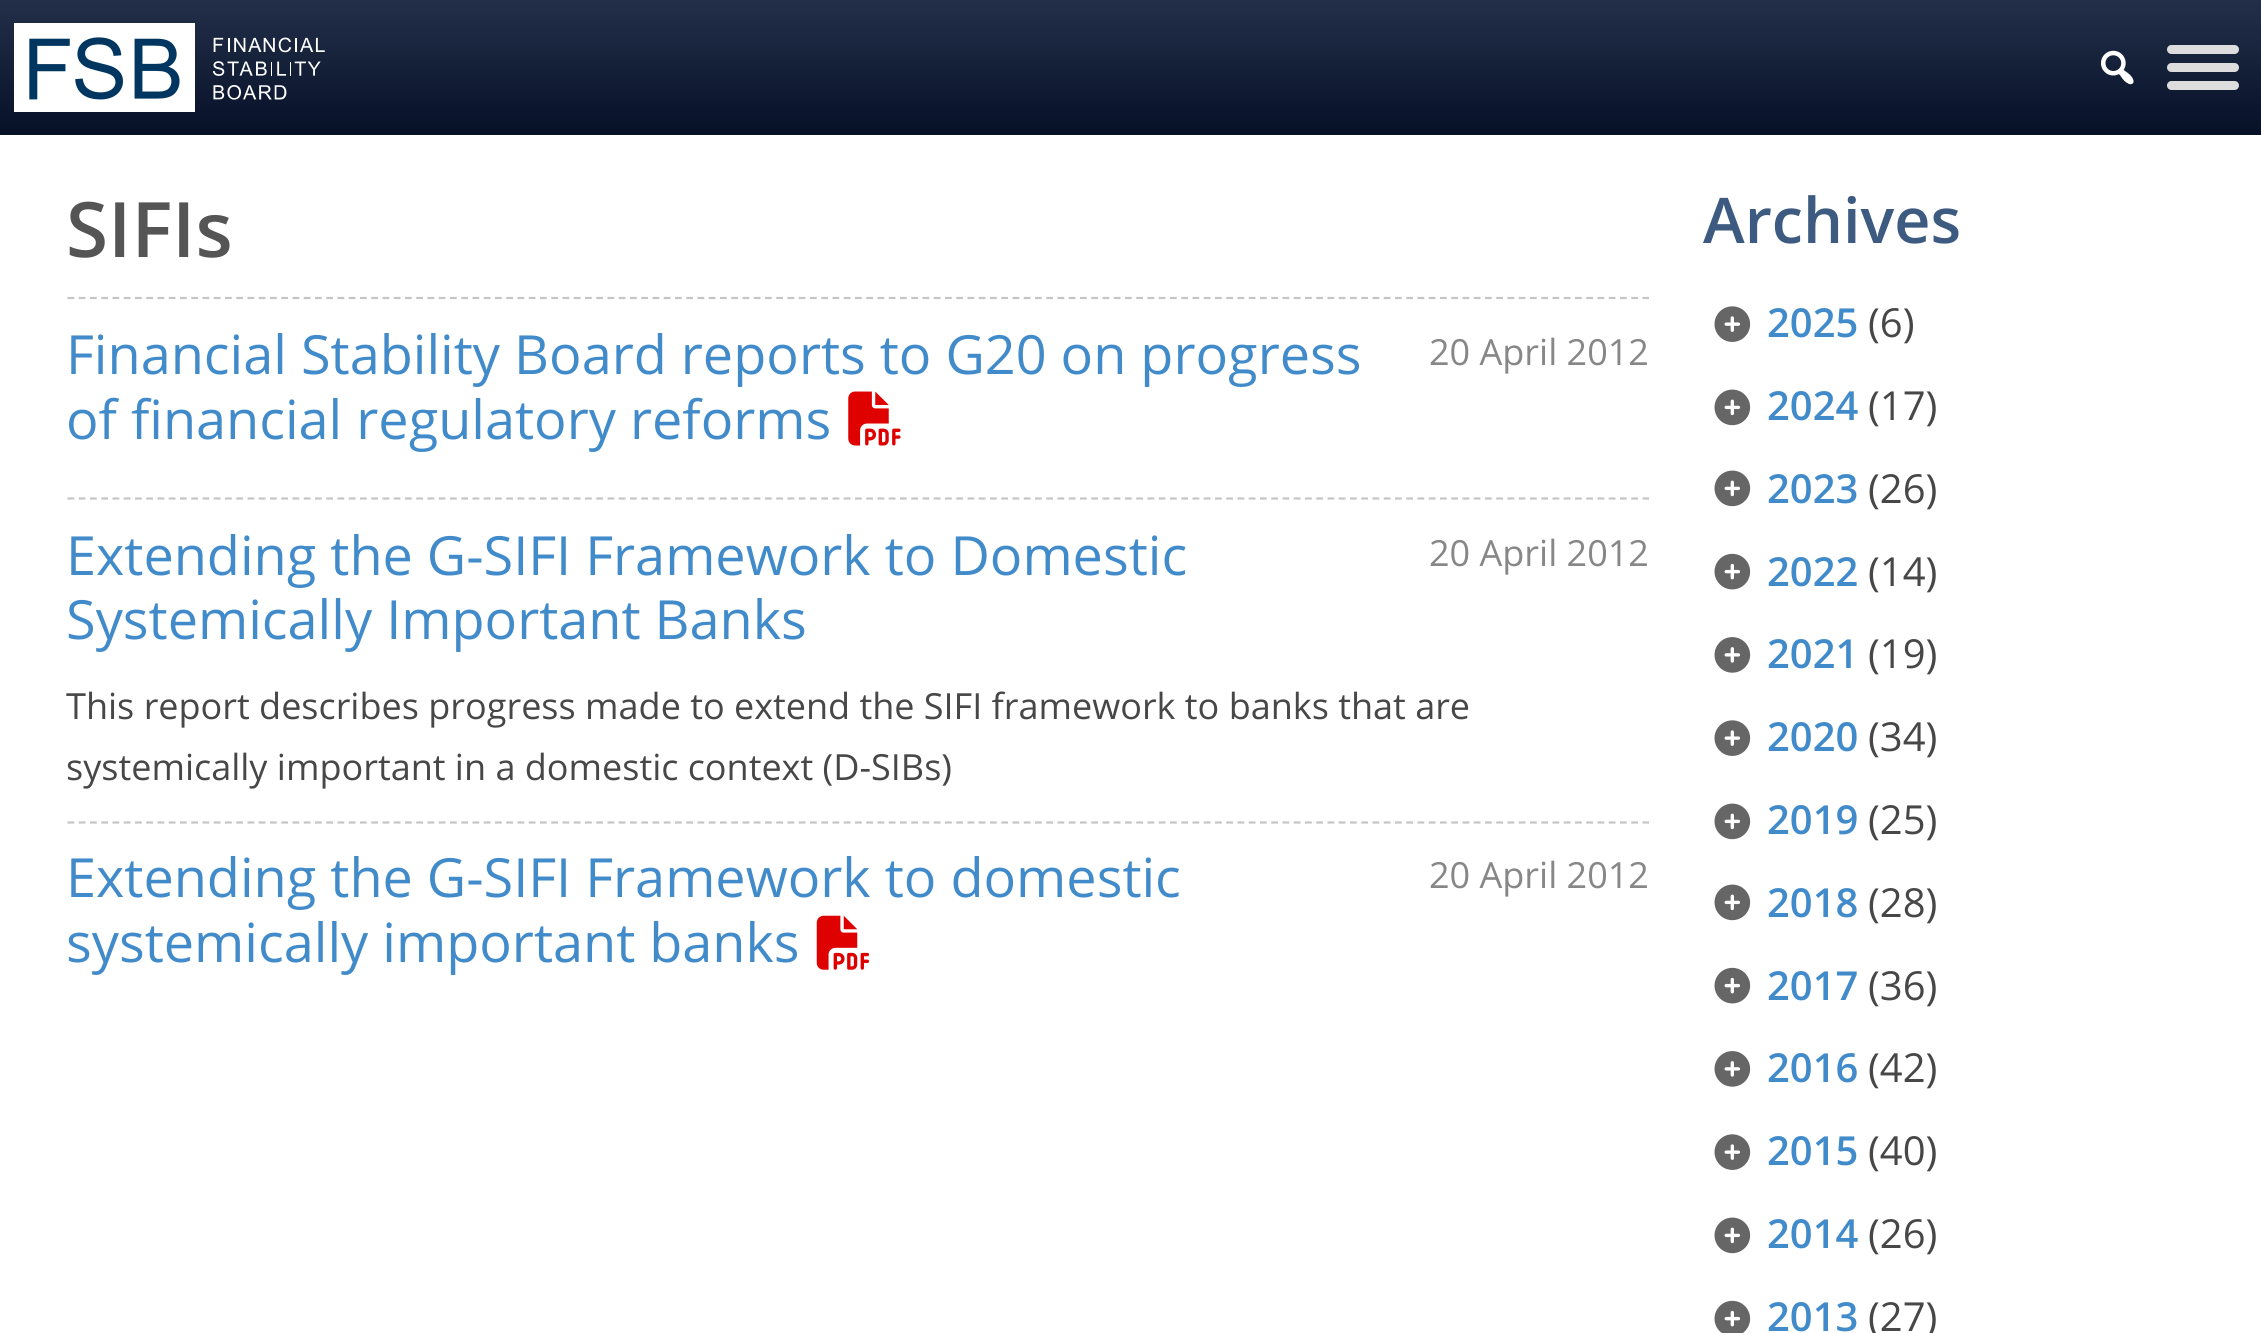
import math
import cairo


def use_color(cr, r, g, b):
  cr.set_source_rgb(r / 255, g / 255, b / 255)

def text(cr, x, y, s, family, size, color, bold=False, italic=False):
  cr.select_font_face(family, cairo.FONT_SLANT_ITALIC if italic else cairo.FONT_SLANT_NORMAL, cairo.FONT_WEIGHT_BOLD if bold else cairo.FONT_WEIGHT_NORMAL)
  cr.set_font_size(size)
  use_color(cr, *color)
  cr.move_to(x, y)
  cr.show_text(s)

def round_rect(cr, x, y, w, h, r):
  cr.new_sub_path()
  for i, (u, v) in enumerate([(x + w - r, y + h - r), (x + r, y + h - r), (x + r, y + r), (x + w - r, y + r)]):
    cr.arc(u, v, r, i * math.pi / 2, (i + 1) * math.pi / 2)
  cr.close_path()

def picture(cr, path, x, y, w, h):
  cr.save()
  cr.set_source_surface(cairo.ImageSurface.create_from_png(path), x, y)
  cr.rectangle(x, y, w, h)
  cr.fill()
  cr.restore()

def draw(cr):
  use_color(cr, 255, 255, 255)
  cr.paint()
  gradient = cairo.LinearGradient(1131, 0, 1131, 135)
  gradient.add_color_stop_rgba(0, 0.137, 0.184, 0.286, 1)
  gradient.add_color_stop_rgba(1, 0.024, 0.067, 0.157, 1)
  cr.set_source(gradient)
  cr.rectangle(0, 0, 2261, 135)
  cr.fill()
  picture(cr, "img_01.png", 14, 23, 311, 89)
  picture(cr, "img_02.png", 2101, 50, 33, 35)
  use_color(cr, 221, 221, 221)
  round_rect(cr, 2167, 45, 72, 9, 4.5)
  cr.fill()
  round_rect(cr, 2167, 63, 72, 9, 4.5)
  cr.fill()
  round_rect(cr, 2167, 81, 72, 9, 4.5)
  cr.fill()
  cr.new_path()
  cr.move_to(67.5, 298)
  cr.line_to(1649, 298)
  use_color(cr, 197, 197, 197)
  cr.set_line_width(2.2)
  cr.set_dash([6.75, 4.5])
  cr.stroke()
  picture(cr, "img_03.png", 848, 391, 53, 55)
  cr.new_path()
  cr.move_to(67.5, 498.5)
  cr.line_to(1649, 498.5)
  cr.stroke()
  cr.new_path()
  cr.move_to(67.5, 822.5)
  cr.line_to(1649, 822.5)
  cr.stroke()
  picture(cr, "img_04.png", 816, 915, 53, 55)
  picture(cr, "img_05.png", 1714, 306, 37, 36)
  picture(cr, "img_06.png", 1714, 389, 37, 37)
  picture(cr, "img_06.png", 1714, 470, 37, 37)
  picture(cr, "img_07.png", 1714, 553, 37, 37)
  picture(cr, "img_08.png", 1714, 637, 37, 36)
  picture(cr, "img_05.png", 1714, 720, 37, 36)
  picture(cr, "img_06.png", 1714, 803, 37, 37)
  picture(cr, "img_06.png", 1714, 884, 37, 37)
  picture(cr, "img_07.png", 1714, 967, 37, 37)
  picture(cr, "img_08.png", 1714, 1051, 37, 36)
  picture(cr, "img_05.png", 1714, 1134, 37, 36)
  picture(cr, "img_06.png", 1714, 1217, 37, 37)
  picture(cr, "img_09.png", 1714, 1300, 37, 33)
  text(cr, 66, 257, "SIFIs", "Open Sans SemiBold", 76.5, (85, 85, 85))
  text(cr, 66, 374, "Financial Stability Board reports to G20 on progress", "Open Sans", 54, (66, 139, 202))
  text(cr, 66, 439, "of financial regulatory reforms", "Open Sans", 54, (66, 139, 202))
  text(cr, 1429, 365, "20 April 2012", "Open Sans", 36, (135, 135, 135))
  text(cr, 66, 575, "Extending the G-SIFI Framework to Domestic", "Open Sans", 54, (66, 139, 202))
  text(cr, 66, 639, "Systemically Important Banks", "Open Sans", 54, (66, 139, 202))
  text(cr, 1429, 566, "20 April 2012", "Open Sans", 36, (135, 135, 135))
  text(cr, 66, 719, "This report describes progress made to extend the SIFI framework to banks that are", "Open Sans", 36, (71, 71, 71))
  text(cr, 66, 780, "systemically important in a domestic context (D-SIBs)", "Open Sans", 36, (71, 71, 71))
  text(cr, 66, 897, "Extending the G-SIFI Framework to domestic", "Open Sans", 54, (66, 139, 202))
  text(cr, 66, 962, "systemically important banks", "Open Sans", 54, (66, 139, 202))
  text(cr, 1429, 888, "20 April 2012", "Open Sans", 36, (135, 135, 135))
  text(cr, 1703, 243, "Archives", "Open Sans SemiBold", 63, (61, 90, 128))
  text(cr, 1767, 337, "2025", "Open Sans SemiBold", 40, (66, 139, 202))
  text(cr, 1868, 337, "(6)", "Open Sans", 40, (71, 71, 71))
  text(cr, 1767, 420, "2024", "Open Sans SemiBold", 40, (66, 139, 202))
  text(cr, 1868, 420, "(17)", "Open Sans", 40, (71, 71, 71))
  text(cr, 1767, 503, "2023", "Open Sans SemiBold", 40, (66, 139, 202))
  text(cr, 1868, 503, "(26)", "Open Sans", 40, (71, 71, 71))
  text(cr, 1767, 586, "2022", "Open Sans SemiBold", 40, (66, 139, 202))
  text(cr, 1868, 586, "(14)", "Open Sans", 40, (71, 71, 71))
  text(cr, 1767, 668, "2021", "Open Sans SemiBold", 40, (66, 139, 202))
  text(cr, 1868, 668, "(19)", "Open Sans", 40, (71, 71, 71))
  text(cr, 1767, 751, "2020", "Open Sans SemiBold", 40, (66, 139, 202))
  text(cr, 1868, 751, "(34)", "Open Sans", 40, (71, 71, 71))
  text(cr, 1767, 834, "2019", "Open Sans SemiBold", 40, (66, 139, 202))
  text(cr, 1868, 834, "(25)", "Open Sans", 40, (71, 71, 71))
  text(cr, 1767, 917, "2018", "Open Sans SemiBold", 40, (66, 139, 202))
  text(cr, 1868, 917, "(28)", "Open Sans", 40, (71, 71, 71))
  text(cr, 1767, 1000, "2017", "Open Sans SemiBold", 40, (66, 139, 202))
  text(cr, 1868, 1000, "(36)", "Open Sans", 40, (71, 71, 71))
  text(cr, 1767, 1082, "2016", "Open Sans SemiBold", 40, (66, 139, 202))
  text(cr, 1868, 1082, "(42)", "Open Sans", 40, (71, 71, 71))
  text(cr, 1767, 1165, "2015", "Open Sans SemiBold", 40, (66, 139, 202))
  text(cr, 1868, 1165, "(40)", "Open Sans", 40, (71, 71, 71))
  text(cr, 1767, 1248, "2014", "Open Sans SemiBold", 40, (66, 139, 202))
  text(cr, 1868, 1248, "(26)", "Open Sans", 40, (71, 71, 71))
  text(cr, 1767, 1331, "2013", "Open Sans SemiBold", 40, (66, 139, 202))
  text(cr, 1868, 1331, "(27)", "Open Sans", 40, (71, 71, 71))


surface = cairo.ImageSurface(cairo.FORMAT_RGB24, 2261, 1333)
cr = cairo.Context(surface)
options = cairo.FontOptions()
options.set_hint_metrics(cairo.HINT_METRICS_OFF)
options.set_hint_style(cairo.HINT_STYLE_NONE)
cr.set_font_options(options)
cr.set_miter_limit(4)
draw(cr)
surface.write_to_png("out.png")
